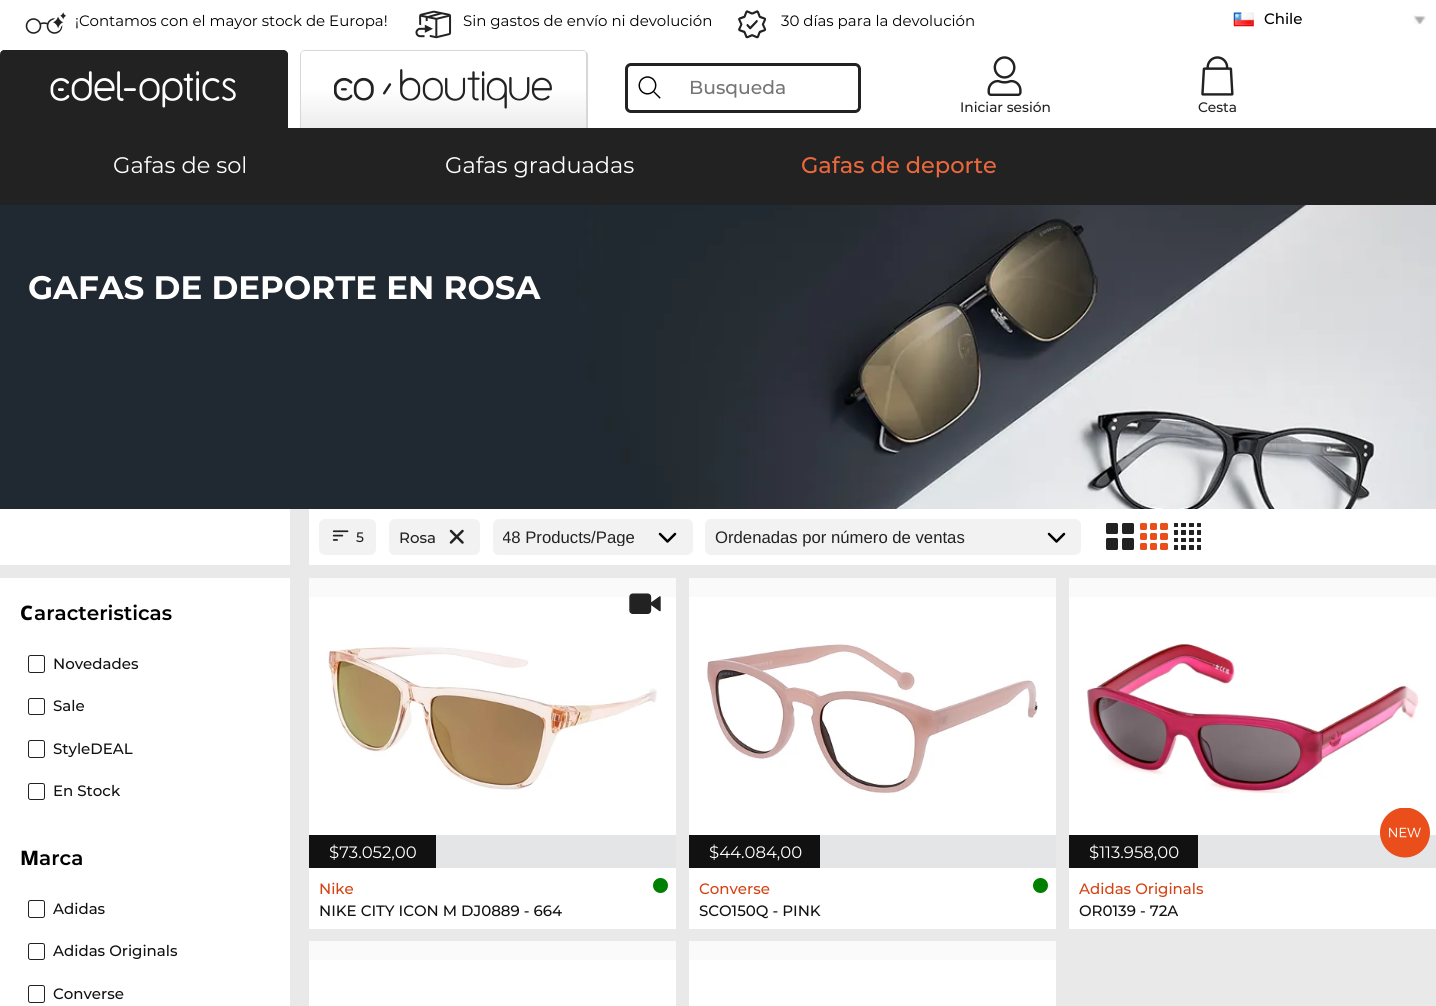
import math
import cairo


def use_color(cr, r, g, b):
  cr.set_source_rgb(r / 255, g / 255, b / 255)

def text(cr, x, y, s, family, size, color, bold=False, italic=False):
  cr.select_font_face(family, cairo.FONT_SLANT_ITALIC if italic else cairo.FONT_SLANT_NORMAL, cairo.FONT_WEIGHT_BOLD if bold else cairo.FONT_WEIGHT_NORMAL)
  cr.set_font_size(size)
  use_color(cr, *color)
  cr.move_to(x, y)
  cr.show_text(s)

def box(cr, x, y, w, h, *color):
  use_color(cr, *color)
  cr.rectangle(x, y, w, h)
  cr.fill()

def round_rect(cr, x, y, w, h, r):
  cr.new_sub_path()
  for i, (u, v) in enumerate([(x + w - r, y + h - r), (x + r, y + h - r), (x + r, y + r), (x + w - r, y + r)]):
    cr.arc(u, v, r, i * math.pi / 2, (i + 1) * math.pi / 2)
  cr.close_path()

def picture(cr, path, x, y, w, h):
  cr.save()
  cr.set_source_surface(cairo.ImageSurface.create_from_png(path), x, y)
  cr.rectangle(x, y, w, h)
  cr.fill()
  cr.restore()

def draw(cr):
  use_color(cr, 255, 255, 255)
  cr.paint()
  picture(cr, "img_01.png", 25, 12, 41, 22)
  picture(cr, "img_02.png", 415, 10, 37, 29)
  picture(cr, "img_03.png", 738, 10, 29, 29)
  picture(cr, "img_04.png", 1413, 14, 13, 11)
  picture(cr, "img_05.png", 1233, 12, 21, 15)
  use_color(cr, 34, 34, 34)
  cr.new_path()
  cr.move_to(5, 50)
  cr.line_to(283, 50)
  cr.curve_to(286, 50, 288, 52, 288, 55)
  cr.line_to(288, 128)
  cr.line_to(0, 128)
  cr.line_to(0, 55)
  cr.curve_to(0, 52, 2, 50, 5, 50)
  cr.close_path()
  cr.fill()
  cr.set_fill_rule(cairo.FILL_RULE_EVEN_ODD)
  cr.new_path()
  cr.move_to(5, 50)
  cr.line_to(282, 50)
  cr.curve_to(285, 50, 288, 52, 288, 55)
  cr.line_to(288, 128)
  cr.line_to(0, 128)
  cr.line_to(0, 55)
  cr.curve_to(0, 52, 2, 50, 5, 50)
  cr.close_path()
  cr.move_to(5, 51)
  cr.line_to(282, 51)
  cr.curve_to(285, 51, 286, 53, 286, 55)
  cr.line_to(286, 128)
  cr.line_to(0, 128)
  cr.line_to(0, 55)
  cr.curve_to(0, 53, 2, 51, 5, 51)
  cr.close_path()
  cr.fill()
  picture(cr, "img_06.png", 50, 71, 186, 37)
  use_color(cr, 215, 215, 215)
  cr.new_path()
  cr.move_to(305, 50)
  cr.line_to(582, 50)
  cr.curve_to(585, 50, 588, 52, 588, 55)
  cr.line_to(588, 128)
  cr.line_to(300, 128)
  cr.line_to(300, 55)
  cr.curve_to(300, 52, 302, 50, 305, 50)
  cr.close_path()
  cr.move_to(305, 51)
  cr.line_to(582, 51)
  cr.curve_to(585, 51, 586, 53, 586, 55)
  cr.line_to(586, 128)
  cr.line_to(301, 128)
  cr.line_to(301, 55)
  cr.curve_to(301, 53, 303, 51, 305, 51)
  cr.close_path()
  cr.fill()
  gradient = cairo.LinearGradient(444, 51, 444, 128)
  gradient.add_color_stop_rgba(0.5, 1, 1, 1, 0.5)
  gradient.add_color_stop_rgba(1, 0.859, 0.859, 0.859, 0.5)
  cr.set_source(gradient)
  cr.rectangle(301, 51, 285, 77)
  cr.fill()
  picture(cr, "img_07.png", 334, 69, 218, 40)
  picture(cr, "img_08.png", 638, 76, 23, 23)
  round_rect(cr, 626.5, 64.5, 233, 47, 4.5)
  use_color(cr, 34, 34, 34)
  cr.set_line_width(3)
  cr.stroke()
  picture(cr, "img_09.png", 987, 56, 35, 40)
  picture(cr, "img_10.png", 1201, 56, 33, 40)
  box(cr, 0, 128, 1436, 77, 34, 34, 34)
  picture(cr, "img_11.png", 0, 205, 1436, 304)
  box(cr, 0, 509, 1436, 497, 233, 233, 233)
  box(cr, 0, 509, 290, 56, 255, 255, 255)
  box(cr, 0, 578, 290, 428, 255, 255, 255)
  round_rect(cr, 28.5, 655.5, 16, 17, 2)
  use_color(cr, 34, 34, 34)
  cr.set_line_width(1)
  cr.stroke()
  round_rect(cr, 28.5, 698.5, 16, 16, 2)
  cr.stroke()
  round_rect(cr, 28.5, 740.5, 16, 17, 2)
  cr.stroke()
  round_rect(cr, 28.5, 783.5, 16, 16, 2)
  cr.stroke()
  round_rect(cr, 28.5, 900.5, 16, 17, 2)
  cr.stroke()
  round_rect(cr, 28.5, 943.5, 16, 16, 2)
  cr.stroke()
  round_rect(cr, 28.5, 985.5, 16, 17, 2)
  cr.stroke()
  box(cr, 309, 509, 1127, 56, 255, 255, 255)
  use_color(cr, 242, 242, 242)
  round_rect(cr, 319, 519, 57, 36, 6)
  cr.fill()
  picture(cr, "img_12.png", 332, 530, 17, 11)
  round_rect(cr, 389, 519, 91, 36, 6)
  cr.fill()
  cr.new_path()
  cr.move_to(451, 542.5)
  cr.line_to(462.5, 531)
  cr.move_to(462.5, 542.5)
  cr.line_to(451, 531)
  use_color(cr, 34, 34, 34)
  cr.set_line_width(2.5)
  cr.set_line_cap(cairo.LINE_CAP_ROUND)
  cr.stroke()
  use_color(cr, 242, 242, 242)
  round_rect(cr, 493, 519, 200, 36, 6)
  cr.fill()
  cr.new_path()
  cr.move_to(675, 534)
  cr.line_to(667.5, 541.5)
  cr.line_to(660, 534)
  use_color(cr, 0, 0, 0)
  cr.set_line_join(cairo.LINE_JOIN_ROUND)
  cr.stroke()
  use_color(cr, 242, 242, 242)
  round_rect(cr, 705, 519, 376, 36, 6)
  cr.fill()
  cr.new_path()
  cr.move_to(1064, 534)
  cr.line_to(1056.5, 541.5)
  cr.line_to(1049, 534)
  use_color(cr, 0, 0, 0)
  cr.stroke()
  use_color(cr, 34, 34, 34)
  round_rect(cr, 1106, 523, 12, 11, 1.5)
  cr.fill()
  round_rect(cr, 1106, 538, 12, 12, 1.5)
  cr.fill()
  round_rect(cr, 1122, 523, 12, 11, 1.5)
  cr.fill()
  round_rect(cr, 1122, 538, 12, 12, 1.5)
  cr.fill()
  picture(cr, "img_13.png", 1140, 523, 28, 27)
  picture(cr, "img_14.png", 1174, 523, 27, 27)
  gradient = cairo.LinearGradient(493, 578, 493, 929)
  gradient.add_color_stop_rgba(0, 0.98, 0.98, 0.98, 1)
  gradient.add_color_stop_rgba(0.05, 0.98, 0.98, 0.98, 1)
  gradient.add_color_stop_rgba(0.9, 0.878, 0.882, 0.89, 1)
  gradient.add_color_stop_rgba(1, 0.878, 0.882, 0.89, 1)
  cr.set_source(gradient)
  cr.rectangle(309, 578, 367, 19)
  cr.fill()
  picture(cr, "img_16.png", 309, 597, 367, 238)
  picture(cr, "img_15.png", 629, 593, 32, 21)
  box(cr, 436, 835, 240, 33, 228, 229, 230)
  box(cr, 309, 835, 127, 33, 17, 17, 17)
  box(cr, 309, 868, 367, 61, 255, 255, 255)
  use_color(cr, 0, 128, 0)
  cr.arc(660.5, 885.5, 7.5, 0, 2 * math.pi)
  cr.fill()
  gradient = cairo.LinearGradient(873, 578, 873, 929)
  gradient.add_color_stop_rgba(0, 0.98, 0.98, 0.98, 1)
  gradient.add_color_stop_rgba(0.05, 0.98, 0.98, 0.98, 1)
  gradient.add_color_stop_rgba(0.9, 0.878, 0.882, 0.89, 1)
  gradient.add_color_stop_rgba(1, 0.878, 0.882, 0.89, 1)
  cr.set_source(gradient)
  cr.rectangle(689, 578, 367, 19)
  cr.fill()
  picture(cr, "img_17.png", 689, 597, 367, 238)
  box(cr, 820, 835, 236, 33, 228, 229, 230)
  box(cr, 689, 835, 131, 33, 17, 17, 17)
  box(cr, 689, 868, 367, 61, 255, 255, 255)
  use_color(cr, 0, 128, 0)
  cr.arc(1040.5, 885.5, 7.5, 0, 2 * math.pi)
  cr.fill()
  gradient = cairo.LinearGradient(1253, 578, 1253, 929)
  gradient.add_color_stop_rgba(0, 0.98, 0.98, 0.98, 1)
  gradient.add_color_stop_rgba(0.05, 0.98, 0.98, 0.98, 1)
  gradient.add_color_stop_rgba(0.9, 0.878, 0.882, 0.89, 1)
  gradient.add_color_stop_rgba(1, 0.878, 0.882, 0.89, 1)
  cr.set_source(gradient)
  cr.rectangle(1069, 578, 367, 19)
  cr.fill()
  picture(cr, "img_18.png", 1069, 597, 367, 238)
  box(cr, 1198, 835, 238, 33, 228, 229, 230)
  box(cr, 1069, 835, 129, 33, 17, 17, 17)
  picture(cr, "img_19.png", 1380, 808, 50, 50)
  box(cr, 1069, 868, 367, 61, 255, 255, 255)
  gradient = cairo.LinearGradient(493, 941, 493, 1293)
  gradient.add_color_stop_rgba(0, 0.98, 0.98, 0.98, 1)
  gradient.add_color_stop_rgba(0.05, 0.98, 0.98, 0.98, 1)
  gradient.add_color_stop_rgba(0.9, 0.878, 0.882, 0.89, 1)
  gradient.add_color_stop_rgba(1, 0.878, 0.882, 0.89, 1)
  cr.set_source(gradient)
  cr.rectangle(309, 941, 367, 19)
  cr.fill()
  box(cr, 309, 960, 367, 46, 255, 255, 255)
  gradient = cairo.LinearGradient(873, 941, 873, 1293)
  gradient.add_color_stop_rgba(0, 0.98, 0.98, 0.98, 1)
  gradient.add_color_stop_rgba(0.05, 0.98, 0.98, 0.98, 1)
  gradient.add_color_stop_rgba(0.9, 0.878, 0.882, 0.89, 1)
  gradient.add_color_stop_rgba(1, 0.878, 0.882, 0.89, 1)
  cr.set_source(gradient)
  cr.rectangle(689, 941, 367, 19)
  cr.fill()
  box(cr, 689, 960, 367, 46, 255, 255, 255)
  text(cr, 75, 26, "¡Contamos con el mayor stock de Europa!", "Montserrat", 15, (0, 0, 0))
  text(cr, 463, 26, "Sin gastos de envío ni devolución", "Montserrat", 15, (0, 0, 0))
  text(cr, 781, 26, "30 días para la devolución", "Montserrat", 15, (0, 0, 0))
  text(cr, 1264, 24, "Chile", "Montserrat Medium", 15, (0, 0, 0))
  text(cr, 689, 94, "Busqueda", "Montserrat Medium", 18.75, (117, 117, 117))
  text(cr, 960, 112, "Iniciar sesión", "Montserrat Medium", 13.75, (34, 34, 34))
  text(cr, 1198, 112, "Cesta", "Montserrat Medium", 13.75, (34, 34, 34))
  text(cr, 113, 173, "Gafas de sol", "Montserrat", 22.5, (255, 255, 255))
  text(cr, 445, 173, "Gafas graduadas", "Montserrat", 22.5, (255, 255, 255))
  text(cr, 801, 173, "Gafas de deporte", "Montserrat Medium", 22.5, (235, 104, 61))
  text(cr, 28, 299, "GAFAS DE DEPORTE EN ROSA", "Montserrat", 32.5, (255, 255, 255), bold=True)
  text(cr, 20, 620, "C", "Noto Sans ExtraBold", 20, (0, 0, 0))
  text(cr, 34, 620, "aracteristicas", "Montserrat SemiBold", 20, (0, 0, 0))
  text(cr, 53, 669, "Novedades", "Montserrat Medium", 15, (17, 17, 17))
  text(cr, 53, 711, "Sale", "Montserrat Medium", 15, (17, 17, 17))
  text(cr, 53, 754, "StyleDEAL", "Montserrat Medium", 15, (17, 17, 17))
  text(cr, 53, 796, "En Stock", "Montserrat Medium", 15, (17, 17, 17))
  text(cr, 20, 865, "M", "Noto Sans ExtraBold", 20, (0, 0, 0))
  text(cr, 39, 865, "arca", "Montserrat SemiBold", 20, (0, 0, 0))
  text(cr, 53, 914, "Adidas", "Montserrat Medium", 15, (17, 17, 17))
  text(cr, 53, 956, "Adidas Originals", "Montserrat Medium", 15, (17, 17, 17))
  text(cr, 53, 999, "Converse", "Montserrat Medium", 15, (17, 17, 17))
  text(cr, 356, 542, "5", "Montserrat Medium", 13.75, (34, 34, 34))
  text(cr, 399, 543, "Rosa", "Montserrat Medium", 15, (34, 34, 34))
  cr.save()
  cr.set_fill_rule(cairo.FILL_RULE_WINDING)
  cr.rectangle(503, 528, 142, 18)
  cr.clip()
  text(cr, 502, 543, "48 Products/Page", "Liberation Sans", 16.7, (34, 34, 34))
  cr.restore()
  text(cr, 715, 543, "Ordenadas por número de ventas", "Liberation Sans", 16.7, (34, 34, 34))
  text(cr, 329, 858, "$73.052,00", "Montserrat", 16.5, (255, 255, 255))
  text(cr, 319, 894, "Nike", "Montserrat Medium", 15, (212, 67, 19))
  text(cr, 319, 916, "NIKE CITY ICON M DJ0889 - 664", "Montserrat Medium", 15, (17, 17, 17))
  text(cr, 709, 858, "$44.084,00", "Montserrat", 16.5, (255, 255, 255))
  text(cr, 699, 894, "Converse", "Montserrat Medium", 15, (212, 67, 19))
  text(cr, 699, 916, "SCO150Q - PINK", "Montserrat Medium", 15, (17, 17, 17))
  text(cr, 1089, 858, "$113.958,00", "Montserrat", 16.5, (255, 255, 255))
  text(cr, 1079, 894, "Adidas Originals", "Montserrat Medium", 15, (212, 67, 19))
  text(cr, 1079, 916, "OR0139 - 72A", "Montserrat Medium", 15, (17, 17, 17))


surface = cairo.ImageSurface(cairo.FORMAT_RGB24, 1436, 1006)
cr = cairo.Context(surface)
options = cairo.FontOptions()
options.set_hint_metrics(cairo.HINT_METRICS_OFF)
options.set_hint_style(cairo.HINT_STYLE_NONE)
cr.set_font_options(options)
cr.set_miter_limit(4)
draw(cr)
surface.write_to_png("out.png")
